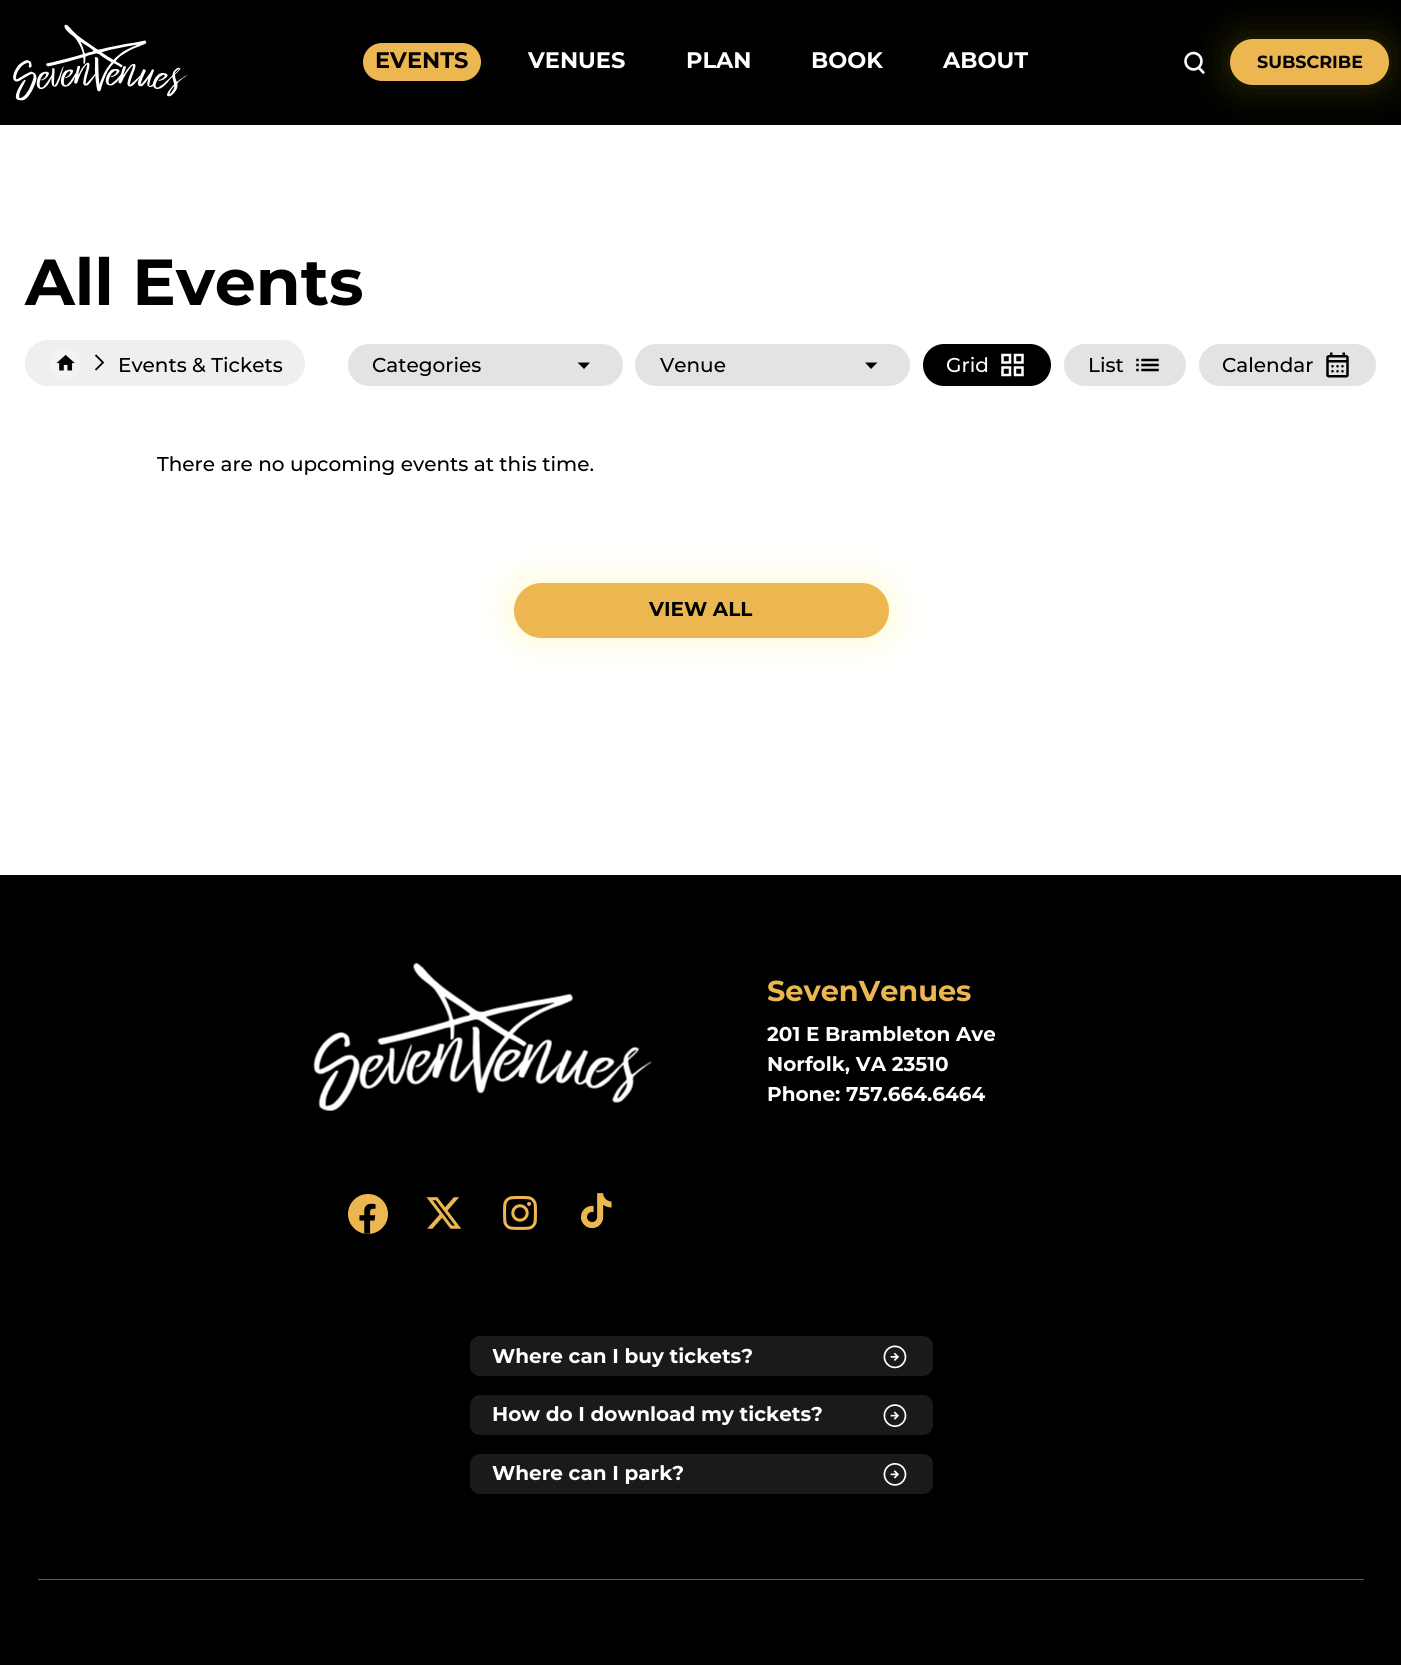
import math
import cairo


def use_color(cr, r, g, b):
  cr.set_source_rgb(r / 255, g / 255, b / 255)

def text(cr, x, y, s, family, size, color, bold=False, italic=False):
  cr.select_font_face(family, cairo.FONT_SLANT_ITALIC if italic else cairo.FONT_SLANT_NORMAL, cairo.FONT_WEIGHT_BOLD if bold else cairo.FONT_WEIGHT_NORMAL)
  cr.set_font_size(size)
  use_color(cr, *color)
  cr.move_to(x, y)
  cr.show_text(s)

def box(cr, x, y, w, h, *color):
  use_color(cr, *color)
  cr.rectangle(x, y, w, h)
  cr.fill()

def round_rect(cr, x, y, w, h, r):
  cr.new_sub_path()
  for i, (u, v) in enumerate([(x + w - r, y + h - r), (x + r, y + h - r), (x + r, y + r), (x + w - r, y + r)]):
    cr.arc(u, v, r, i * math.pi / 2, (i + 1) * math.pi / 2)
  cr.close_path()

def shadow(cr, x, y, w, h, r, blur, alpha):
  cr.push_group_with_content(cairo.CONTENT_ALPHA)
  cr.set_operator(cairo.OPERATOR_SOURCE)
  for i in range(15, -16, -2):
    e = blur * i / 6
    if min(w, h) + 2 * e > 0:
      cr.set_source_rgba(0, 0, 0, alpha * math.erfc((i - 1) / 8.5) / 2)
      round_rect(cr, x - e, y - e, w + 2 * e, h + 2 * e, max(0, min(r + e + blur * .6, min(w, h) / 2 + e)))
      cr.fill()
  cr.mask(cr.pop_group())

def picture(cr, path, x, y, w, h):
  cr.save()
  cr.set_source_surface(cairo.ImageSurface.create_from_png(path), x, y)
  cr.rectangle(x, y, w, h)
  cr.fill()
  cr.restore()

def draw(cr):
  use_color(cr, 255, 255, 255)
  cr.paint()
  box(cr, 0, 0, 1401, 125, 0, 0, 0)
  picture(cr, "img_01.png", 13, 24, 174, 77)
  use_color(cr, 236, 183, 81)
  round_rect(cr, 363, 43, 118, 38, 19)
  cr.fill()
  picture(cr, "img_02.png", 1184, 51, 21, 23)
  use_color(cr, 255, 229, 0)
  shadow(cr, 1230, 39, 159, 46, 23, 19.5, 0.2)
  use_color(cr, 236, 183, 81)
  round_rect(cr, 1230, 39, 159, 46, 23)
  cr.fill()
  use_color(cr, 239, 239, 239)
  round_rect(cr, 25, 340, 280, 46, 23)
  cr.fill()
  picture(cr, "img_03.png", 50, 348, 31, 31)
  cr.new_path()
  cr.move_to(95.5, 370)
  cr.line_to(103, 362.5)
  cr.line_to(95.5, 355)
  use_color(cr, 0, 0, 0)
  cr.set_line_width(1.8)
  cr.stroke()
  use_color(cr, 227, 227, 227)
  round_rect(cr, 348, 344, 275, 42, 21)
  cr.fill()
  use_color(cr, 0, 0, 0)
  cr.set_fill_rule(cairo.FILL_RULE_EVEN_ODD)
  cr.new_path()
  cr.move_to(577.5, 362.5)
  cr.line_to(584, 369)
  cr.line_to(590, 362.5)
  cr.close_path()
  cr.fill()
  use_color(cr, 227, 227, 227)
  round_rect(cr, 635, 344, 275, 42, 21)
  cr.fill()
  use_color(cr, 0, 0, 0)
  cr.new_path()
  cr.move_to(865, 362.5)
  cr.line_to(871, 369)
  cr.line_to(877.5, 362.5)
  cr.close_path()
  cr.fill()
  round_rect(cr, 923, 344, 128, 42, 21)
  cr.fill()
  picture(cr, "img_04.png", 1001, 353, 23, 24)
  use_color(cr, 227, 227, 227)
  round_rect(cr, 1064, 344, 122, 42, 21)
  cr.fill()
  picture(cr, "img_05.png", 1136, 358, 23, 14)
  round_rect(cr, 1199, 344, 177, 42, 21)
  cr.fill()
  picture(cr, "img_06.png", 1326, 352, 23, 26)
  use_color(cr, 255, 229, 0)
  shadow(cr, 514, 583, 375, 55, 27.5, 19.5, 0.2)
  use_color(cr, 236, 183, 81)
  round_rect(cr, 514, 583, 375, 55, 27.5)
  cr.fill()
  box(cr, 0, 875, 1401, 790, 0, 0, 0)
  picture(cr, "img_07.png", 313, 962, 339, 149)
  use_color(cr, 236, 183, 81)
  cr.arc(368, 1214, 20, 0, 2 * math.pi)
  cr.fill()
  picture(cr, "img_08.png", 359, 1203, 17, 31)
  picture(cr, "img_09.png", 426, 1197, 36, 32)
  picture(cr, "img_10.png", 503, 1196, 34, 34)
  picture(cr, "img_11.png", 580, 1193, 32, 36)
  use_color(cr, 26, 26, 26)
  round_rect(cr, 470, 1336, 463, 40, 10)
  cr.fill()
  picture(cr, "img_12.png", 883, 1345, 24, 24)
  round_rect(cr, 470, 1395, 463, 40, 10)
  cr.fill()
  picture(cr, "img_13.png", 883, 1404, 24, 23)
  round_rect(cr, 470, 1454, 463, 40, 10)
  cr.fill()
  picture(cr, "img_14.png", 883, 1463, 24, 23)
  box(cr, 38, 1579, 1326, 1, 118, 92, 41)
  text(cr, 375, 68, "EVENTS", "Montserrat", 22.5, (0, 0, 0), bold=True)
  text(cr, 528, 68, "VENUES", "Montserrat", 22.5, (255, 255, 255), bold=True)
  text(cr, 686, 68, "PLAN", "Montserrat", 22.5, (255, 255, 255), bold=True)
  text(cr, 811, 68, "BOOK", "Montserrat", 22.5, (255, 255, 255), bold=True)
  text(cr, 943, 68, "ABOUT", "Montserrat", 22.5, (255, 255, 255), bold=True)
  text(cr, 1257, 68, "SUBSCRIBE", "Montserrat", 17.5, (0, 0, 0), bold=True)
  text(cr, 25, 305, "All Events", "Montserrat", 65, (0, 0, 0), bold=True)
  text(cr, 118, 372, "Events & Tickets", "Montserrat Medium", 20, (0, 0, 0))
  text(cr, 372, 372, "Categories", "Montserrat Medium", 20, (0, 0, 0))
  text(cr, 660, 372, "Venue", "Montserrat Medium", 20, (0, 0, 0))
  text(cr, 946, 372, "Grid", "Montserrat Medium", 20, (255, 255, 255))
  text(cr, 1088, 372, "List", "Montserrat Medium", 20, (0, 0, 0))
  text(cr, 1222, 372, "Calendar", "Montserrat Medium", 20, (0, 0, 0))
  text(cr, 157, 471, "There are no upcoming events at this time.", "Montserrat Medium", 20, (0, 0, 0))
  text(cr, 649, 616, "VIEW ALL", "Montserrat", 20, (0, 0, 0), bold=True)
  text(cr, 767, 1001, "SevenVenues", "Montserrat", 28.75, (236, 183, 81), bold=True)
  text(cr, 767, 1041, "201 E Brambleton Ave", "Montserrat", 20, (255, 255, 255), bold=True)
  text(cr, 767, 1071, "Norfolk, VA 23510", "Montserrat", 20, (255, 255, 255), bold=True)
  text(cr, 767, 1101, "Phone: 757.664.6464", "Montserrat", 20, (255, 255, 255), bold=True)
  text(cr, 492, 1363, "Where can I buy tickets?", "Montserrat", 20, (255, 255, 255), bold=True)
  text(cr, 492, 1421, "How do I download my tickets?", "Montserrat", 20, (255, 255, 255), bold=True)
  text(cr, 492, 1480, "Where can I park?", "Montserrat", 20, (255, 255, 255), bold=True)


surface = cairo.ImageSurface(cairo.FORMAT_RGB24, 1401, 1665)
cr = cairo.Context(surface)
options = cairo.FontOptions()
options.set_hint_metrics(cairo.HINT_METRICS_OFF)
options.set_hint_style(cairo.HINT_STYLE_NONE)
cr.set_font_options(options)
cr.set_miter_limit(4)
draw(cr)
surface.write_to_png("out.png")
